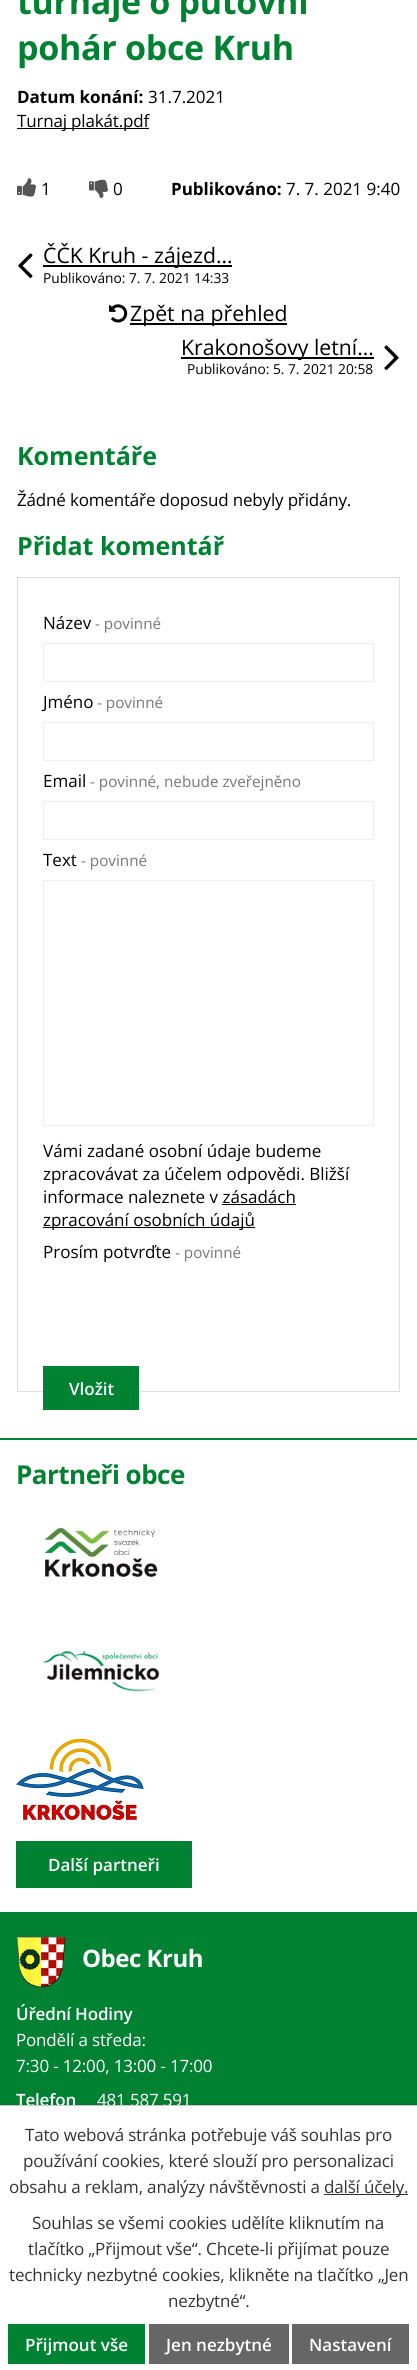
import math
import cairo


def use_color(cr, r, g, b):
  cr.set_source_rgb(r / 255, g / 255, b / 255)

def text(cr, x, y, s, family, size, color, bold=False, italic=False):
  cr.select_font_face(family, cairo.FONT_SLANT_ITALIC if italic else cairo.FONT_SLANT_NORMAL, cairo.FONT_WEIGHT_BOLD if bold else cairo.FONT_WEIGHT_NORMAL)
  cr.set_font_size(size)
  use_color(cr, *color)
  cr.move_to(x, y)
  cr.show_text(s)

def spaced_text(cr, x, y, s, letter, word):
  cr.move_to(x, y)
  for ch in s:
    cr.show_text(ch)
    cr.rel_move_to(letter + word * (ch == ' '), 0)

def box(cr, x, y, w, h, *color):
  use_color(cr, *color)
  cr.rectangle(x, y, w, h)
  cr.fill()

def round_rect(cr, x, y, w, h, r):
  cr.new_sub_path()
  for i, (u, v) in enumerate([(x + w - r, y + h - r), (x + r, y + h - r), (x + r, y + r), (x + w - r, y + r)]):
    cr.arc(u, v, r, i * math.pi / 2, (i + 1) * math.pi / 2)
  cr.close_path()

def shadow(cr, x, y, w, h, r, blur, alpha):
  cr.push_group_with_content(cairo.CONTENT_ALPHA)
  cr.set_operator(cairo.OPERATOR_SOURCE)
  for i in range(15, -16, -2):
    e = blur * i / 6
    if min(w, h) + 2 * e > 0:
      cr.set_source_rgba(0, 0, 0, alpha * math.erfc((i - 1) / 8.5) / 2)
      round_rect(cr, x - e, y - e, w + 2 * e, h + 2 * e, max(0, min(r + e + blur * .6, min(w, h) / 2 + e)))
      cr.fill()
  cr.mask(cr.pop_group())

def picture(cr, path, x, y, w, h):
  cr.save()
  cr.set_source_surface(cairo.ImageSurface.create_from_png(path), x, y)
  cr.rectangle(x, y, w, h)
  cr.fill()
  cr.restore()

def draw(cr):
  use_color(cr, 255, 255, 255)
  cr.paint()
  box(cr, 17, 128, 132, 1, 0, 0, 0)
  picture(cr, "img_01.png", 17, 178, 19, 19)
  picture(cr, "img_02.png", 89, 179, 19, 19)
  picture(cr, "img_03.png", 18, 253, 15, 25)
  box(cr, 43, 265, 189, 2, 0, 0, 0)
  picture(cr, "img_04.png", 109, 304, 19, 19)
  box(cr, 130, 323, 157, 2, 0, 0, 0)
  box(cr, 181, 357, 193, 2, 0, 0, 0)
  picture(cr, "img_05.png", 384, 345, 15, 25)
  cr.rectangle(17.5, 577.5, 382, 814)
  use_color(cr, 222, 222, 222)
  cr.set_line_width(1)
  cr.stroke()
  cr.rectangle(43.5, 643.5, 330, 38)
  use_color(cr, 238, 238, 238)
  cr.stroke()
  cr.rectangle(43.5, 722.5, 330, 38)
  cr.stroke()
  cr.rectangle(43.5, 801.5, 330, 38)
  cr.stroke()
  cr.rectangle(43.5, 880.5, 330, 245)
  cr.stroke()
  box(cr, 222, 1204, 74, 1, 0, 0, 0)
  box(cr, 43, 1227, 212, 1, 0, 0, 0)
  box(cr, 43, 1366, 96, 44, 0, 130, 50)
  box(cr, 0, 1438, 417, 2, 0, 130, 50)
  picture(cr, "img_06.png", 44, 1527, 114, 50)
  picture(cr, "img_07.png", 42, 1647, 118, 47)
  picture(cr, "img_08.png", 16, 1738, 128, 83)
  box(cr, 16, 1841, 176, 47, 0, 130, 50)
  box(cr, 0, 1912, 417, 193, 0, 130, 50)
  picture(cr, "img_09.png", 16, 1936, 50, 52)
  use_color(cr, 0, 0, 0)
  shadow(cr, 0, 2105, 417, 265, 0, 2.5, 0.2)
  box(cr, 0, 2106, 417, 264, 255, 255, 255)
  box(cr, 324, 2194, 84, 1, 51, 51, 51)
  box(cr, 8, 2324, 137, 40, 0, 130, 50)
  box(cr, 149, 2324, 140, 40, 102, 102, 102)
  box(cr, 292, 2324, 117, 40, 102, 102, 102)
  cr.select_font_face("Open Sans", cairo.FONT_SLANT_NORMAL, cairo.FONT_WEIGHT_BOLD)
  cr.set_font_size(34)
  use_color(cr, 0, 130, 50)
  spaced_text(cr, 17, 14, "turnaje o putovní", -0.3, 0)
  spaced_text(cr, 17, 60, "pohár obce Kruh", -0.3, 0)
  text(cr, 17, 103, "Datum konání:", "Open Sans", 17, (0, 0, 0), bold=True)
  text(cr, 148, 103, "31.7.2021", "Open Sans", 17, (0, 0, 0))
  spaced_text(cr, 17, 127, "Turnaj plakát.pdf", -0.17, 0)
  text(cr, 41, 195, "1", "Open Sans", 17, (0, 0, 0))
  text(cr, 113, 195, "0", "Open Sans", 17, (0, 0, 0))
  text(cr, 171, 195, "Publikováno:", "Open Sans", 17, (0, 0, 0), bold=True)
  text(cr, 286, 195, "7. 7. 2021 9:40", "Open Sans", 17, (0, 0, 0))
  text(cr, 43, 263, "ČČK Kruh - zájezd…", "Open Sans", 21.25, (0, 0, 0))
  text(cr, 43, 283, "Publikováno: 7. 7. 2021 14:33", "Open Sans", 13.75, (0, 0, 0))
  text(cr, 130, 321, "Zpět na přehled", "Open Sans", 21.25, (0, 0, 0))
  text(cr, 181, 355, "Krakonošovy letní…", "Open Sans", 21.25, (0, 0, 0))
  text(cr, 187, 374, "Publikováno: 5. 7. 2021 20:58", "Open Sans", 13.75, (0, 0, 0))
  text(cr, 17, 465, "Komentáře", "Open Sans", 25, (0, 130, 50), bold=True)
  cr.select_font_face("Open Sans")
  cr.set_font_size(17)
  use_color(cr, 0, 0, 0)
  spaced_text(cr, 17, 506, "Žádné komentáře doposud nebyly přidány.", -0.17, 0)
  text(cr, 17, 555, "Přidat komentář", "Open Sans", 25, (0, 130, 50), bold=True)
  text(cr, 43, 629, "Název", "Open Sans", 17, (0, 0, 0))
  text(cr, 95, 629, "- povinné", "Open Sans", 15.25, (119, 119, 119))
  text(cr, 43, 708, "Jméno", "Open Sans", 17, (0, 0, 0))
  text(cr, 97, 708, "- povinné", "Open Sans", 15.25, (119, 119, 119))
  text(cr, 43, 787, "Email", "Open Sans", 17, (0, 0, 0))
  text(cr, 90, 787, "- povinné, nebude zveřejněno", "Open Sans", 15.25, (119, 119, 119))
  text(cr, 43, 866, "Text", "Open Sans", 17, (0, 0, 0))
  text(cr, 81, 866, "- povinné", "Open Sans", 15.25, (119, 119, 119))
  text(cr, 43, 1157, "Vámi zadané osobní údaje budeme", "Open Sans", 17, (0, 0, 0))
  text(cr, 43, 1180, "zpracovávat za účelem odpovědi. Bližší", "Open Sans", 17, (0, 0, 0))
  text(cr, 43, 1203, "informace naleznete v zásadách", "Open Sans", 17, (0, 0, 0))
  text(cr, 43, 1226, "zpracování osobních údajů", "Open Sans", 17, (0, 0, 0))
  text(cr, 43, 1258, "Prosím potvrďte", "Open Sans", 17, (0, 0, 0))
  text(cr, 175, 1258, "- povinné", "Open Sans", 15.25, (119, 119, 119))
  text(cr, 69, 1395, "Vložit", "Open Sans SemiBold", 17, (255, 255, 255))
  cr.select_font_face("Open Sans", cairo.FONT_SLANT_NORMAL, cairo.FONT_WEIGHT_BOLD)
  cr.set_font_size(26)
  use_color(cr, 0, 130, 50)
  spaced_text(cr, 16, 1484, "Partneři obce", -0.5, 0)
  text(cr, 48, 1871, "Další partneři", "Open Sans SemiBold", 17, (255, 255, 255))
  cr.select_font_face("Open Sans", cairo.FONT_SLANT_NORMAL, cairo.FONT_WEIGHT_BOLD)
  cr.set_font_size(24)
  spaced_text(cr, 82, 1967, "Obec Kruh", -0.5, 0)
  cr.select_font_face("Open Sans SemiBold")
  cr.set_font_size(17)
  spaced_text(cr, 16, 2020, "Úřední Hodiny", -0.17, 0)
  cr.select_font_face("Open Sans")
  spaced_text(cr, 16, 2046, "Pondělí a středa:", -0.17, 0)
  spaced_text(cr, 16, 2072, "7:30 - 12:00, 13:00 - 17:00", -0.17, 0)
  cr.select_font_face("Open Sans SemiBold")
  spaced_text(cr, 16, 2106, "Telefon", -0.17, 0)
  cr.select_font_face("Open Sans")
  spaced_text(cr, 97, 2106, "481 587 591", -0.17, 0)
  box(cr, 0, 2105, 417, 1, 204, 204, 204)
  use_color(cr, 51, 51, 51)
  spaced_text(cr, 25, 2141, "Tato webová stránka potřebuje váš souhlas pro", -0.17, 0)
  spaced_text(cr, 23, 2167, "používání cookies, které slouží pro personalizaci", -0.17, 0)
  spaced_text(cr, 9, 2193, "obsahu a reklam, analýzy návštěvnosti a", -0.17, 0)
  spaced_text(cr, 324, 2193, "další účely.", -0.17, 0)
  spaced_text(cr, 32, 2229, "Souhlas se všemi cookies udělíte kliknutím na", -0.17, 0)
  spaced_text(cr, 28, 2255, "tlačítko „Přijmout vše“. Chcete-li přijímat pouze", -0.17, 0)
  spaced_text(cr, 9, 2281, "technicky nezbytné cookies, klikněte na tlačítko „Jen", -0.17, 0)
  spaced_text(cr, 168, 2307, "nezbytné“.", -0.17, 0)
  text(cr, 25, 2351, "Přijmout vše", "Open Sans SemiBold", 17, (255, 255, 255))
  text(cr, 166, 2351, "Jen nezbytné", "Open Sans SemiBold", 17, (255, 255, 255))
  text(cr, 309, 2351, "Nastavení", "Open Sans SemiBold", 17, (255, 255, 255))


surface = cairo.ImageSurface(cairo.FORMAT_RGB24, 417, 2370)
cr = cairo.Context(surface)
options = cairo.FontOptions()
options.set_hint_metrics(cairo.HINT_METRICS_OFF)
options.set_hint_style(cairo.HINT_STYLE_NONE)
cr.set_font_options(options)
cr.set_miter_limit(4)
draw(cr)
surface.write_to_png("out.png")
